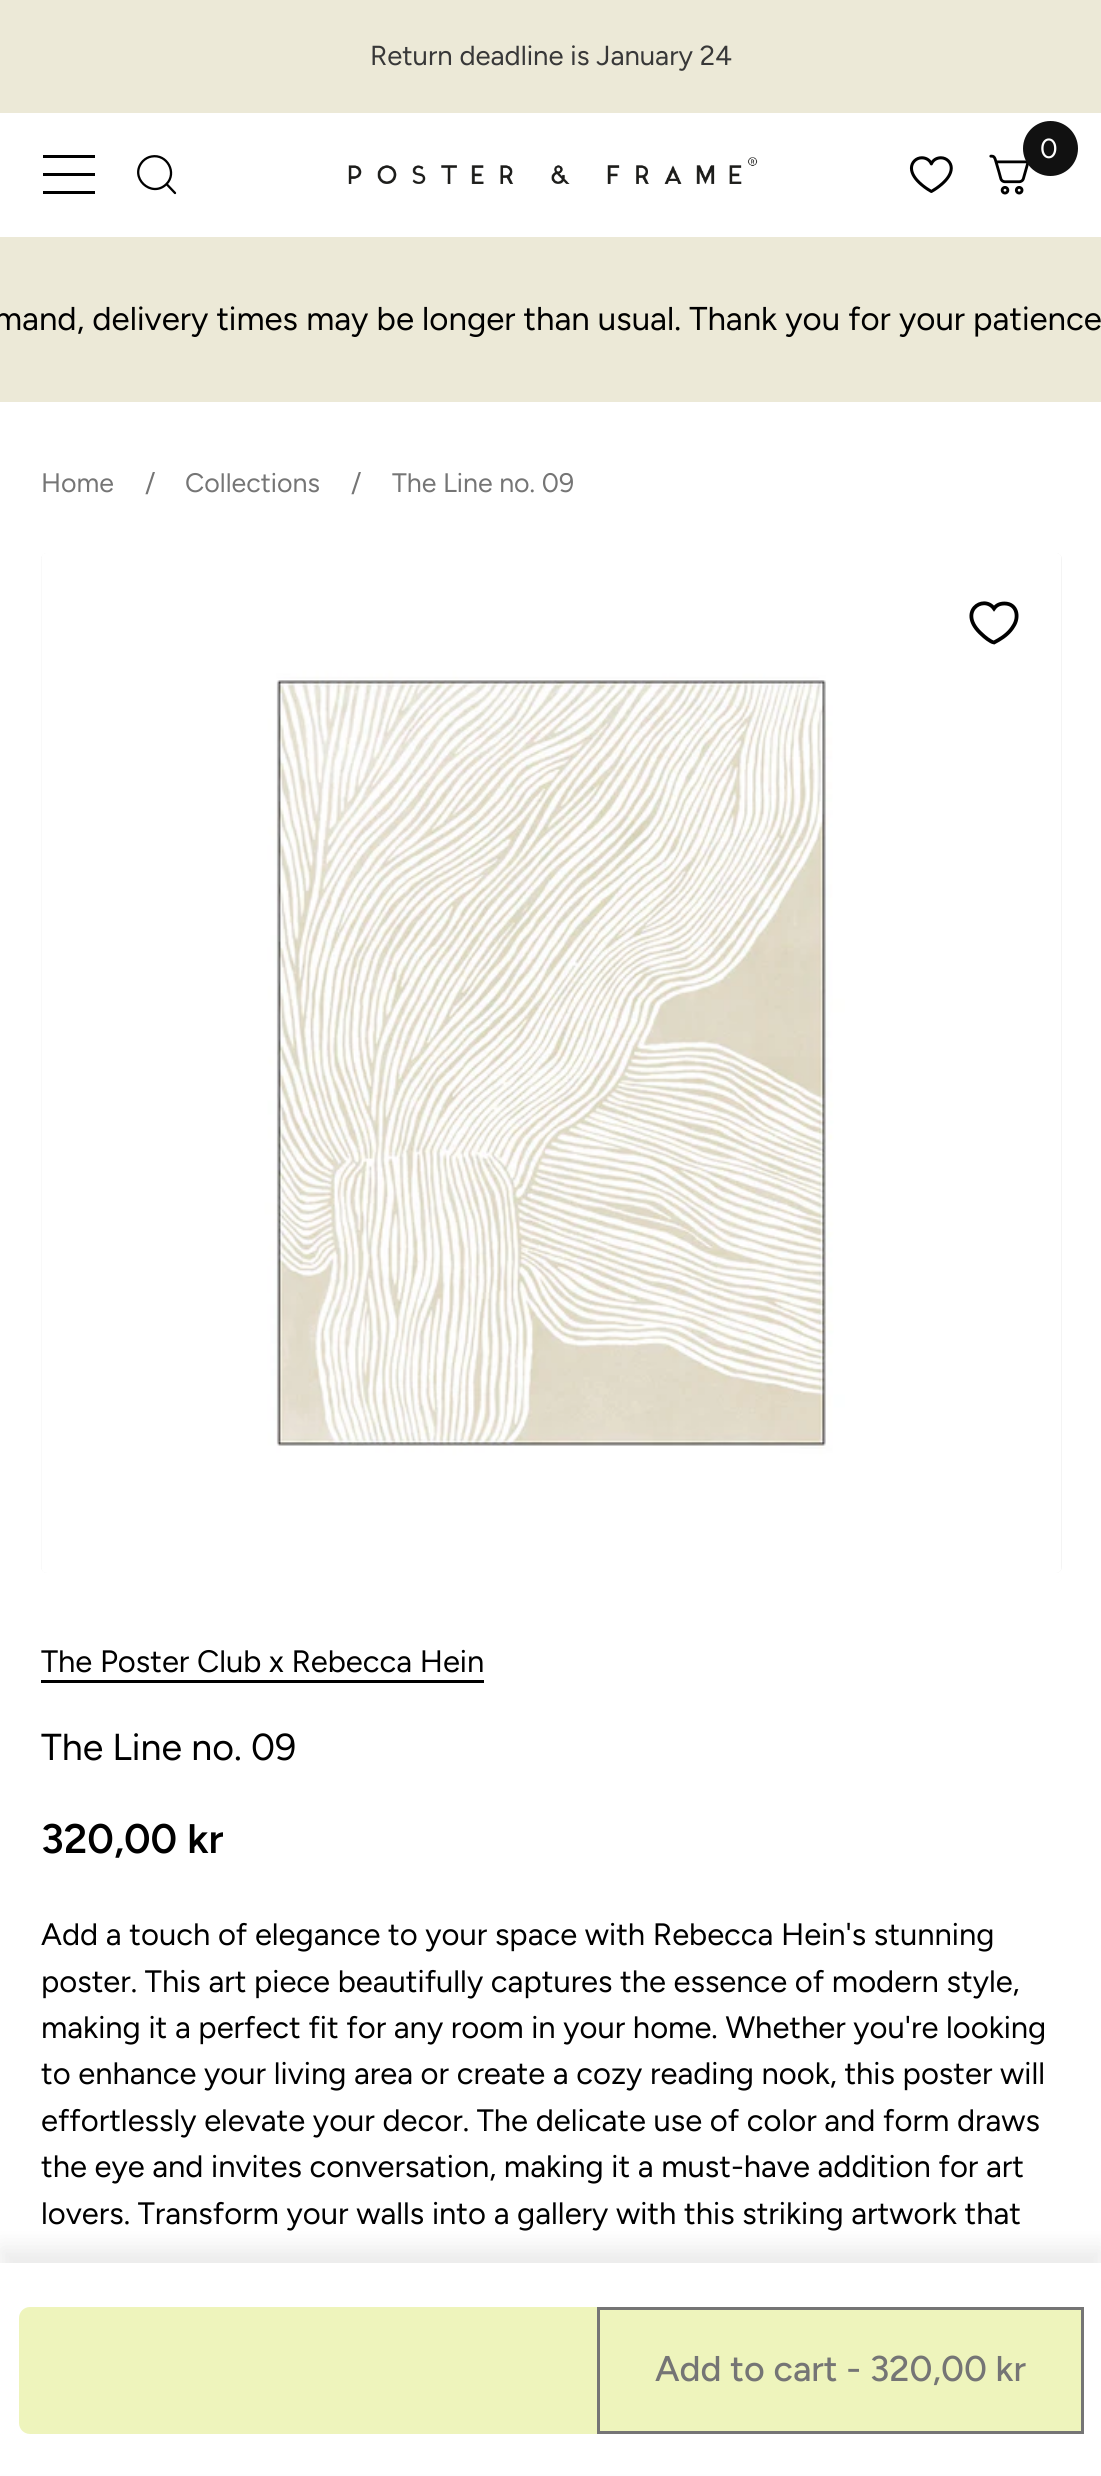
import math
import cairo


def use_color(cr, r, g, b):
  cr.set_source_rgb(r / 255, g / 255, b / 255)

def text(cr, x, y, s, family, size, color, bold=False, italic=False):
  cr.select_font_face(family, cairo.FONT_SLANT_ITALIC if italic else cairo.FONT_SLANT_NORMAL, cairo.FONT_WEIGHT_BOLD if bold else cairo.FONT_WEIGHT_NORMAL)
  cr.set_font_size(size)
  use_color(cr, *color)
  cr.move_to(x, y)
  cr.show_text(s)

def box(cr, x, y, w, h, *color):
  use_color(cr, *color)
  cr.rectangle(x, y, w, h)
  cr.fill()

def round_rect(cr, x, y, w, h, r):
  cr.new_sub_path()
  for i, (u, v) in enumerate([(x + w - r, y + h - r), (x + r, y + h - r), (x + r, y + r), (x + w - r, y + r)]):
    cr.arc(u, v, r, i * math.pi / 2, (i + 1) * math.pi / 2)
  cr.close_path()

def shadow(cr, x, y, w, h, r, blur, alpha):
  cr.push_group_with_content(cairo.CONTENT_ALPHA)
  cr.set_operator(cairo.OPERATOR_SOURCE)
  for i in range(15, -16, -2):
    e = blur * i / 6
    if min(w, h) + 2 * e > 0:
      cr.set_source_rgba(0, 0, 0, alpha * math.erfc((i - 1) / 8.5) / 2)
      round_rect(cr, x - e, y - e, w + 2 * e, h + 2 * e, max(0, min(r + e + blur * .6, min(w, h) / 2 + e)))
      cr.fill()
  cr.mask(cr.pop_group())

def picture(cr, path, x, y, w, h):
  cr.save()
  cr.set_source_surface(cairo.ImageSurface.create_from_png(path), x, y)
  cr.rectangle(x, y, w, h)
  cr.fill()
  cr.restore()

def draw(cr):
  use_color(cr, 255, 255, 255)
  cr.paint()
  box(cr, 0, 0, 1101, 113, 236, 233, 215)
  picture(cr, "img_01.png", 989, 154, 40, 41)
  use_color(cr, 17, 17, 17)
  cr.arc(1050.5, 148.5, 27.5, 0, 2 * math.pi)
  cr.fill()
  box(cr, 43, 155, 52, 3, 0, 0, 0)
  box(cr, 43, 173, 52, 3, 0, 0, 0)
  box(cr, 43, 191, 52, 3, 0, 0, 0)
  cr.new_path()
  cr.move_to(175, 193)
  cr.line_to(166.5, 184)
  cr.move_to(166.5, 184)
  cr.curve_to(177.5, 173, 167, 153.5, 151.5, 156.5)
  cr.curve_to(148.5, 157, 145.5, 158.5, 143, 161)
  cr.curve_to(128, 177, 151.5, 199, 166.5, 184)
  cr.close_path()
  cr.set_line_width(2.3)
  cr.set_line_cap(cairo.LINE_CAP_ROUND)
  cr.set_line_join(cairo.LINE_JOIN_ROUND)
  cr.stroke()
  picture(cr, "img_02.png", 348, 157, 410, 27)
  picture(cr, "img_03.png", 909, 156, 44, 37)
  box(cr, 0, 237, 1101, 165, 236, 233, 215)
  use_color(cr, 244, 244, 244)
  round_rect(cr, 41, 553, 1021, 1020, 6)
  cr.fill()
  picture(cr, "img_04.png", 41, 553, 1020, 1020)
  cr.new_path()
  cr.move_to(1004.5, 603.5)
  cr.curve_to(1000, 603.5, 996.5, 605, 994, 608.5)
  cr.curve_to(983.5, 594, 956.5, 612, 982, 634.5)
  cr.curve_to(984, 636.5, 990.5, 642, 994, 642.5)
  cr.line_to(998.5, 640)
  cr.curve_to(1004.5, 636.5, 1010, 632, 1013.5, 626)
  cr.curve_to(1019.5, 617, 1017, 603.5, 1004.5, 603.5)
  cr.close_path()
  use_color(cr, 0, 0, 0)
  cr.set_line_width(3.8)
  cr.set_line_cap(cairo.LINE_CAP_BUTT)
  cr.set_line_join(cairo.LINE_JOIN_MITER)
  cr.stroke()
  box(cr, 41, 1680, 443, 3, 0, 0, 0)
  use_color(cr, 0, 0, 0)
  shadow(cr, 0, 2247, 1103, 214, 0, 11, 0.08)
  box(cr, 0, 2263, 1101, 211, 255, 255, 255)
  use_color(cr, 238, 244, 188)
  round_rect(cr, 19, 2307, 1065, 127, 11)
  cr.fill()
  cr.rectangle(598.5, 2308.5, 484, 124)
  use_color(cr, 117, 117, 117)
  cr.set_line_width(3)
  cr.stroke()
  text(cr, 370, 65, "Return deadline is January 24", "Figtree", 27.5, (56, 56, 56))
  text(cr, 1040, 158, "0", "Figtree", 27.5, (255, 255, 255))
  text(cr, -6, 330, "mand, delivery times may be longer than usual. Thank you for your patience", "Figtree", 33, (0, 0, 0))
  text(cr, 41, 492, "Home", "Figtree", 26.75, (117, 117, 117))
  text(cr, 145, 492, "/", "Figtree", 26.75, (117, 117, 117))
  text(cr, 185, 492, "Collections", "Figtree", 26.75, (117, 117, 117))
  text(cr, 351, 492, "/", "Figtree", 26.75, (117, 117, 117))
  text(cr, 392, 492, "The Line no. 09", "Figtree", 26.75, (117, 117, 117))
  text(cr, 41, 1672, "The Poster Club x Rebecca Hein", "Figtree", 30.95, (0, 0, 0))
  text(cr, 41, 1760, "The Line no. 09", "Figtree", 37.5, (0, 0, 0))
  text(cr, 41, 1853, "320,00 kr", "Figtree SemiBold", 41.25, (0, 0, 0))
  text(cr, 41, 1945, "Add a touch of elegance to your space with Rebecca Hein's stunning", "Figtree", 30.95, (0, 0, 0))
  text(cr, 41, 1992, "poster. This art piece beautifully captures the essence of modern style,", "Figtree", 30.95, (0, 0, 0))
  text(cr, 41, 2038, "making it a perfect fit for any room in your home. Whether you're looking", "Figtree", 30.95, (0, 0, 0))
  text(cr, 41, 2084, "to enhance your living area or create a cozy reading nook, this poster will", "Figtree", 30.95, (0, 0, 0))
  text(cr, 41, 2131, "effortlessly elevate your decor. The delicate use of color and form draws", "Figtree", 30.95, (0, 0, 0))
  text(cr, 41, 2177, "the eye and invites conversation, making it a must-have addition for art", "Figtree", 30.95, (0, 0, 0))
  text(cr, 41, 2224, "lovers. Transform your walls into a gallery with this striking artwork that", "Figtree", 30.95, (0, 0, 0))
  text(cr, 655, 2381, "Add to cart - 320,00 kr", "Figtree Medium", 35.75, (117, 117, 117))


surface = cairo.ImageSurface(cairo.FORMAT_RGB24, 1101, 2476)
cr = cairo.Context(surface)
options = cairo.FontOptions()
options.set_hint_metrics(cairo.HINT_METRICS_OFF)
options.set_hint_style(cairo.HINT_STYLE_NONE)
cr.set_font_options(options)
cr.set_miter_limit(4)
draw(cr)
surface.write_to_png("out.png")
